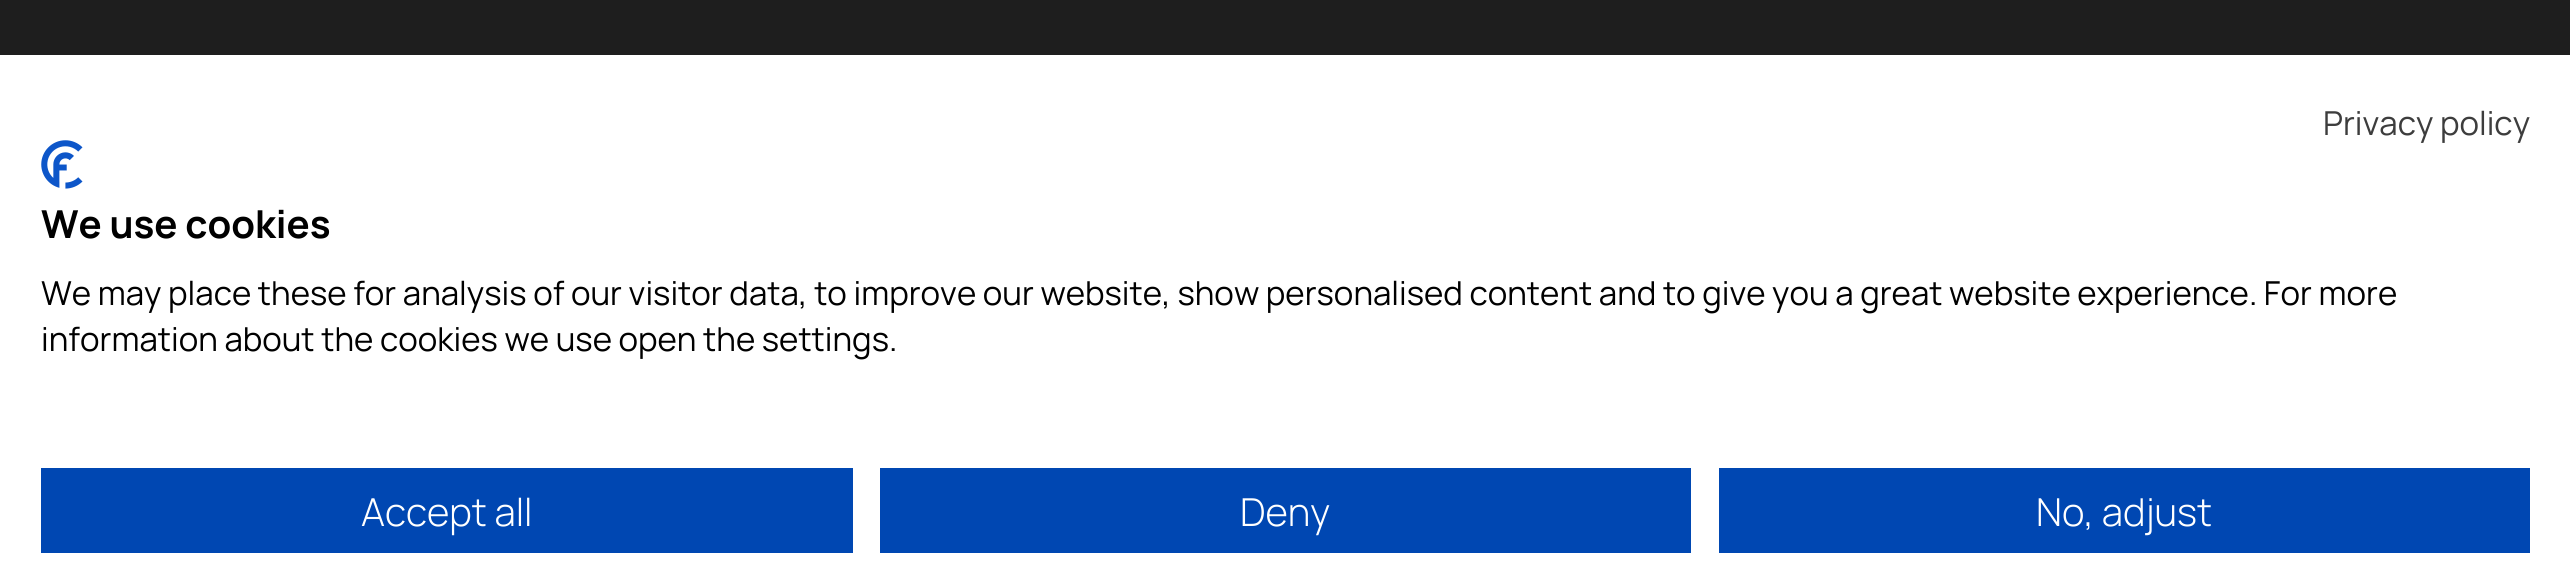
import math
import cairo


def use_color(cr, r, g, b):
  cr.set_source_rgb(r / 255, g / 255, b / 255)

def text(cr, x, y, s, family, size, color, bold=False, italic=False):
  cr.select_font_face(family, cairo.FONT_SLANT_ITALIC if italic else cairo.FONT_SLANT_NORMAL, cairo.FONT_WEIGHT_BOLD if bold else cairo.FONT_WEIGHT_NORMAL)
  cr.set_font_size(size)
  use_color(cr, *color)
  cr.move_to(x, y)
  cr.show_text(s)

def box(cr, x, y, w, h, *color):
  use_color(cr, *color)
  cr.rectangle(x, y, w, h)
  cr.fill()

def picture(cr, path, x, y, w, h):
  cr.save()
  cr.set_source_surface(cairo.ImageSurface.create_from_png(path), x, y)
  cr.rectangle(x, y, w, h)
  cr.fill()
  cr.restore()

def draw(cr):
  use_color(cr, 30, 30, 30)
  cr.paint()
  box(cr, 0, 55, 2570, 507, 255, 255, 255)
  picture(cr, "img_01.png", 41, 140, 42, 49)
  box(cr, 41, 468, 812, 85, 0, 71, 178)
  box(cr, 880, 468, 811, 85, 0, 71, 178)
  box(cr, 1719, 468, 811, 85, 0, 71, 178)
  text(cr, 2323, 135, "Privacy policy", "Manrope", 33, (61, 61, 61))
  text(cr, 41, 238, "We use cookies", "Manrope", 38.5, (0, 0, 0), bold=True)
  text(cr, 41, 305, "We may place these for analysis of our visitor data, to improve our website, show personalised content and to give you a great website experience. For more", "Manrope", 33, (0, 0, 0))
  text(cr, 41, 351, "information about the cookies we use open the settings.", "Manrope", 33, (0, 0, 0))
  text(cr, 361, 526, "Accept all", "Manrope Light", 38.5, (255, 255, 255))
  text(cr, 1240, 526, "Deny", "Manrope Light", 38.5, (255, 255, 255))
  text(cr, 2036, 526, "No, adjust", "Manrope Light", 38.5, (255, 255, 255))


surface = cairo.ImageSurface(cairo.FORMAT_RGB24, 2570, 562)
cr = cairo.Context(surface)
options = cairo.FontOptions()
options.set_hint_metrics(cairo.HINT_METRICS_OFF)
options.set_hint_style(cairo.HINT_STYLE_NONE)
cr.set_font_options(options)
cr.set_miter_limit(4)
draw(cr)
surface.write_to_png("out.png")
